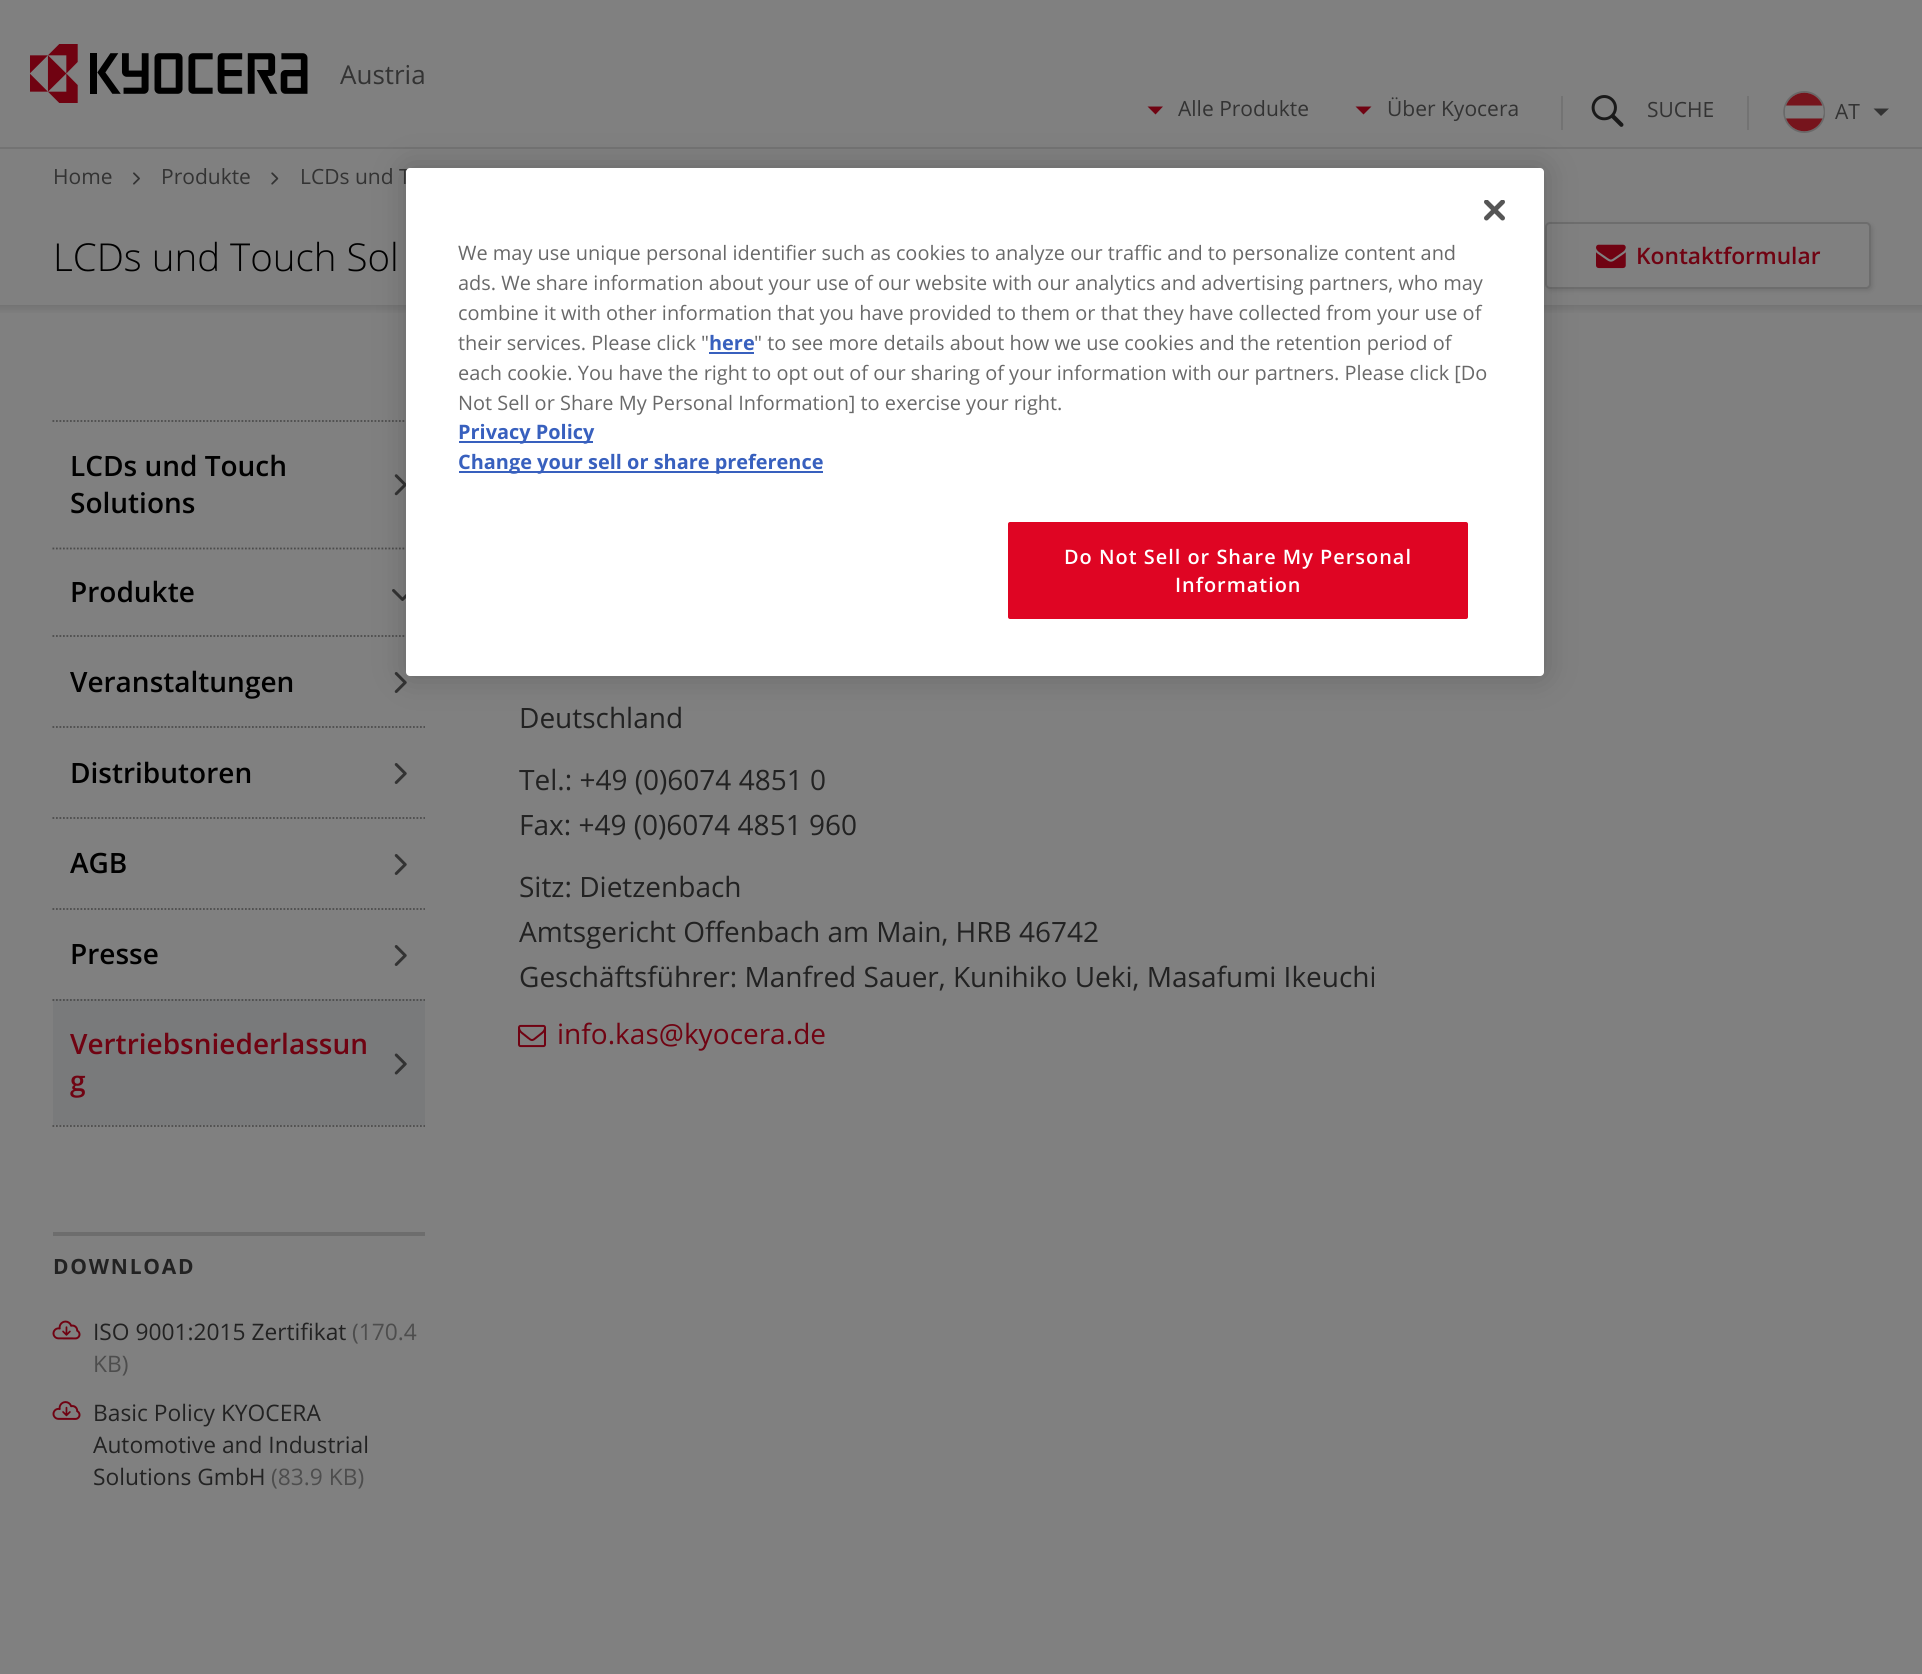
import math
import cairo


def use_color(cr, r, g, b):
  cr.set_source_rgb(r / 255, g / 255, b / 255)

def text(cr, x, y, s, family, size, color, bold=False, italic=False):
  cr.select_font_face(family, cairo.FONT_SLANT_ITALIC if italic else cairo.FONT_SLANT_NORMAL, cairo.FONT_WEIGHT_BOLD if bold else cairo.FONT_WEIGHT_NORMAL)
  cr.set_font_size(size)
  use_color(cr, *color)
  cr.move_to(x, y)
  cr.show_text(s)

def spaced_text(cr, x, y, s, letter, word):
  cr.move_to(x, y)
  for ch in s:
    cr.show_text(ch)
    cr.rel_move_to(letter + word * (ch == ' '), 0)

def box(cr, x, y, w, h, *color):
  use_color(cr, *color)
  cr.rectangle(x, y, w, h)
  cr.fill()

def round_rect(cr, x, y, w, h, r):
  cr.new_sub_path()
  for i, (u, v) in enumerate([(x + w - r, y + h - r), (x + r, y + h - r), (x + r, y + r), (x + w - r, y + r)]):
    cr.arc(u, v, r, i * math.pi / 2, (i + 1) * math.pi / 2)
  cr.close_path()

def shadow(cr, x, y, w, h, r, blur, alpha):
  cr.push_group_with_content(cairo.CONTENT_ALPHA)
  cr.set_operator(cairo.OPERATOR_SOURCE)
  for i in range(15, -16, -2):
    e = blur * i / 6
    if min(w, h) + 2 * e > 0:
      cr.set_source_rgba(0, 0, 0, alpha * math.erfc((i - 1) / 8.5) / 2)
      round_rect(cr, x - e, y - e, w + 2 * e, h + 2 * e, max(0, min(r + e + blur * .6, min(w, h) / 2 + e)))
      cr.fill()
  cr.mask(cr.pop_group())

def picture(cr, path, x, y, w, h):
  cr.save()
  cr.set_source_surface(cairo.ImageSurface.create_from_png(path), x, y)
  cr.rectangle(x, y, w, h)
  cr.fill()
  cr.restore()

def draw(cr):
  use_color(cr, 128, 128, 128)
  cr.paint()
  box(cr, 0, 147, 1922, 2, 115, 115, 115)
  picture(cr, "img_01.png", 30, 44, 278, 59)
  use_color(cr, 112, 3, 18)
  cr.new_path()
  cr.move_to(1147.5, 106.5)
  cr.line_to(1163, 106.5)
  cr.line_to(1155.5, 114.5)
  cr.close_path()
  cr.fill()
  cr.new_path()
  cr.move_to(1355.5, 106.5)
  cr.line_to(1371.5, 106.5)
  cr.line_to(1363.5, 114.5)
  cr.close_path()
  cr.fill()
  box(cr, 1561, 96, 2, 34, 115, 115, 115)
  picture(cr, "img_02.png", 1591, 95, 33, 32)
  box(cr, 1747, 96, 2, 34, 115, 115, 115)
  picture(cr, "img_03.png", 1783, 91, 42, 42)
  use_color(cr, 51, 51, 51)
  cr.new_path()
  cr.move_to(1873.5, 108.5)
  cr.line_to(1889, 108.5)
  cr.line_to(1881, 116)
  cr.close_path()
  cr.fill()
  picture(cr, "img_04.png", 133, 172, 7, 13)
  picture(cr, "img_05.png", 271, 172, 8, 13)
  use_color(cr, 0, 0, 0)
  shadow(cr, 1547, 224, 326, 67, 5, 2, 0.1)
  use_color(cr, 128, 128, 128)
  round_rect(cr, 1546, 223, 324, 65, 4)
  cr.fill_preserve()
  use_color(cr, 109, 109, 109)
  cr.stroke()
  picture(cr, "img_06.png", 1596, 244, 30, 25)
  gradient = cairo.LinearGradient(962, 315, 962, 305)
  gradient.add_color_stop_rgba(0, 0.502, 0.502, 0.502, 1)
  gradient.add_color_stop_rgba(0.98, 0.455, 0.455, 0.455, 1)
  cr.set_source(gradient)
  cr.rectangle(0, 305, 1922, 8)
  cr.fill()
  cr.new_path()
  cr.move_to(52.5, 421)
  cr.line_to(425, 421)
  use_color(cr, 76, 76, 76)
  cr.set_line_width(1.8)
  cr.set_dash([1.75, 1.75])
  cr.stroke()
  picture(cr, "img_08.png", 394, 474, 12, 22)
  cr.new_path()
  cr.move_to(52.5, 548.5)
  cr.line_to(425, 548.5)
  cr.stroke()
  picture(cr, "img_09.png", 392, 589, 14, 12)
  cr.new_path()
  cr.move_to(52.5, 636)
  cr.line_to(425, 636)
  cr.stroke()
  picture(cr, "img_10.png", 394, 672, 13, 21)
  use_color(cr, 0, 0, 0)
  shadow(cr, 406, 168, 1138, 508, 4, 16, 0.2)
  cr.new_path()
  cr.move_to(52.5, 1126)
  cr.line_to(425, 1126)
  use_color(cr, 76, 76, 76)
  cr.stroke()
  cr.new_path()
  cr.move_to(52.5, 727)
  cr.line_to(425, 727)
  cr.stroke()
  picture(cr, "img_10.png", 394, 763, 13, 21)
  cr.new_path()
  cr.move_to(52.5, 818)
  cr.line_to(425, 818)
  cr.stroke()
  picture(cr, "img_10.png", 394, 854, 13, 21)
  cr.new_path()
  cr.move_to(52.5, 909)
  cr.line_to(425, 909)
  cr.stroke()
  picture(cr, "img_10.png", 394, 945, 13, 21)
  box(cr, 53, 999, 372, 126, 121, 122, 123)
  cr.new_path()
  cr.move_to(52.5, 1000)
  cr.line_to(425, 1000)
  use_color(cr, 76, 76, 76)
  cr.stroke()
  picture(cr, "img_11.png", 394, 1053, 13, 22)
  box(cr, 53, 1232, 372, 4, 109, 109, 109)
  picture(cr, "img_12.png", 52, 1320, 29, 20)
  picture(cr, "img_13.png", 52, 1401, 29, 19)
  picture(cr, "img_14.png", 518, 1024, 28, 24)
  text(cr, 340, 84, "Austria", "Open Sans", 26, (51, 51, 51))
  text(cr, 1178, 116, "Alle Produkte", "Open Sans", 21, (51, 51, 51))
  text(cr, 1387, 116, "Über Kyocera", "Open Sans", 21, (51, 51, 51))
  text(cr, 1647, 117, "SUCHE", "Open Sans", 21, (51, 51, 51))
  text(cr, 1835, 119, "AT", "Open Sans", 21, (51, 51, 51))
  text(cr, 53, 184, "Home", "Open Sans", 21, (51, 51, 51))
  text(cr, 161, 184, "Produkte", "Open Sans", 21, (51, 51, 51))
  text(cr, 300, 184, "LCDs und T", "Open Sans", 21, (51, 51, 51))
  text(cr, 53, 271, "LCDs und Touch Sol", "Open Sans Light", 38.5, (0, 0, 0))
  text(cr, 1636, 264, "Kontaktformular", "Open Sans SemiBold", 22.75, (112, 3, 18))
  use_color(cr, 255, 255, 255)
  round_rect(cr, 406, 168, 1138, 508, 4)
  cr.fill()
  picture(cr, "img_07.png", 1484, 200, 21, 21)
  text(cr, 458, 260, "We may use unique personal identifier such as cookies to analyze our traffic and to personalize content and", "Open Sans", 19.92, (105, 105, 105))
  text(cr, 458, 290, "ads. We share information about your use of our website with our analytics and advertising partners, who may", "Open Sans", 19.92, (105, 105, 105))
  text(cr, 458, 320, "combine it with other information that you have provided to them or that they have collected from your use of", "Open Sans", 19.92, (105, 105, 105))
  text(cr, 458, 350, "their services. Please click \"", "Open Sans", 19.92, (105, 105, 105))
  text(cr, 709, 350, "here", "Open Sans", 19.92, (56, 96, 190), bold=True)
  box(cr, 709, 352, 45, 2, 56, 96, 190)
  text(cr, 754, 350, "\" to see more details about how we use cookies and the retention period of", "Open Sans", 19.92, (105, 105, 105))
  text(cr, 458, 380, "each cookie. You have the right to opt out of our sharing of your information with our partners. Please click [Do", "Open Sans", 19.92, (105, 105, 105))
  text(cr, 458, 410, "Not Sell or Share My Personal Information] to exercise your right.", "Open Sans", 19.92, (105, 105, 105))
  box(cr, 459, 441, 134, 2, 56, 96, 190)
  text(cr, 458, 439, "Privacy Policy", "Open Sans", 19.92, (56, 96, 190), bold=True)
  box(cr, 459, 471, 364, 2, 56, 96, 190)
  text(cr, 458, 469, "Change your sell or share preference", "Open Sans", 19.92, (56, 96, 190), bold=True)
  use_color(cr, 223, 5, 35)
  round_rect(cr, 1007, 521, 462, 99, 3)
  cr.fill_preserve()
  use_color(cr, 255, 255, 255)
  cr.set_line_width(2)
  cr.set_dash([])
  cr.stroke()
  cr.select_font_face("Open Sans SemiBold")
  spaced_text(cr, 1064, 564, "Do Not Sell or Share My Personal", 1, 0)
  spaced_text(cr, 1175, 592, "Information", 1, 0)
  text(cr, 70, 476, "LCDs und Touch", "Open Sans SemiBold", 28, (0, 0, 0))
  text(cr, 70, 513, "Solutions", "Open Sans SemiBold", 28, (0, 0, 0))
  text(cr, 70, 602, "Produkte", "Open Sans SemiBold", 28, (0, 0, 0))
  text(cr, 70, 692, "Veranstaltungen", "Open Sans SemiBold", 28, (0, 0, 0))
  text(cr, 70, 783, "Distributoren", "Open Sans SemiBold", 28, (0, 0, 0))
  text(cr, 70, 873, "AGB", "Open Sans SemiBold", 28, (0, 0, 0))
  text(cr, 70, 964, "Presse", "Open Sans SemiBold", 28, (0, 0, 0))
  text(cr, 70, 1054, "Vertriebsniederlassun", "Open Sans SemiBold", 28, (112, 3, 18))
  text(cr, 70, 1091, "g", "Open Sans SemiBold", 28, (112, 3, 18))
  cr.select_font_face("Open Sans", cairo.FONT_SLANT_NORMAL, cairo.FONT_WEIGHT_BOLD)
  cr.set_font_size(21)
  use_color(cr, 34, 34, 34)
  spaced_text(cr, 53, 1274, "DOWNLOAD", 1.75, 0)
  text(cr, 93, 1340, "ISO 9001:2015 Zertifikat", "Open Sans", 22.75, (34, 34, 34))
  text(cr, 352, 1340, "(170.4", "Open Sans", 22.75, (77, 77, 77))
  text(cr, 93, 1372, "KB)", "Open Sans", 22.75, (77, 77, 77))
  text(cr, 93, 1421, "Basic Policy KYOCERA", "Open Sans", 22.75, (34, 34, 34))
  text(cr, 93, 1453, "Automotive and Industrial", "Open Sans", 22.75, (34, 34, 34))
  text(cr, 93, 1485, "Solutions GmbH", "Open Sans", 22.75, (34, 34, 34))
  text(cr, 271, 1485, "(83.9 KB)", "Open Sans", 22.75, (77, 77, 77))
  text(cr, 519, 728, "Deutschland", "Open Sans", 28, (34, 34, 34))
  text(cr, 519, 790, "Tel.: +49 (0)6074 4851 0", "Open Sans", 28, (34, 34, 34))
  text(cr, 519, 835, "Fax: +49 (0)6074 4851 960", "Open Sans", 28, (34, 34, 34))
  text(cr, 519, 897, "Sitz: Dietzenbach", "Open Sans", 28, (34, 34, 34))
  text(cr, 519, 942, "Amtsgericht Offenbach am Main, HRB 46742", "Open Sans", 28, (34, 34, 34))
  text(cr, 519, 987, "Geschäftsführer: Manfred Sauer, Kunihiko Ueki, Masafumi Ikeuchi", "Open Sans", 28, (34, 34, 34))
  text(cr, 557, 1044, "info.kas@kyocera.de", "Open Sans", 28, (112, 3, 18))


surface = cairo.ImageSurface(cairo.FORMAT_RGB24, 1922, 1674)
cr = cairo.Context(surface)
options = cairo.FontOptions()
options.set_hint_metrics(cairo.HINT_METRICS_OFF)
options.set_hint_style(cairo.HINT_STYLE_NONE)
cr.set_font_options(options)
cr.set_miter_limit(4)
draw(cr)
surface.write_to_png("out.png")
